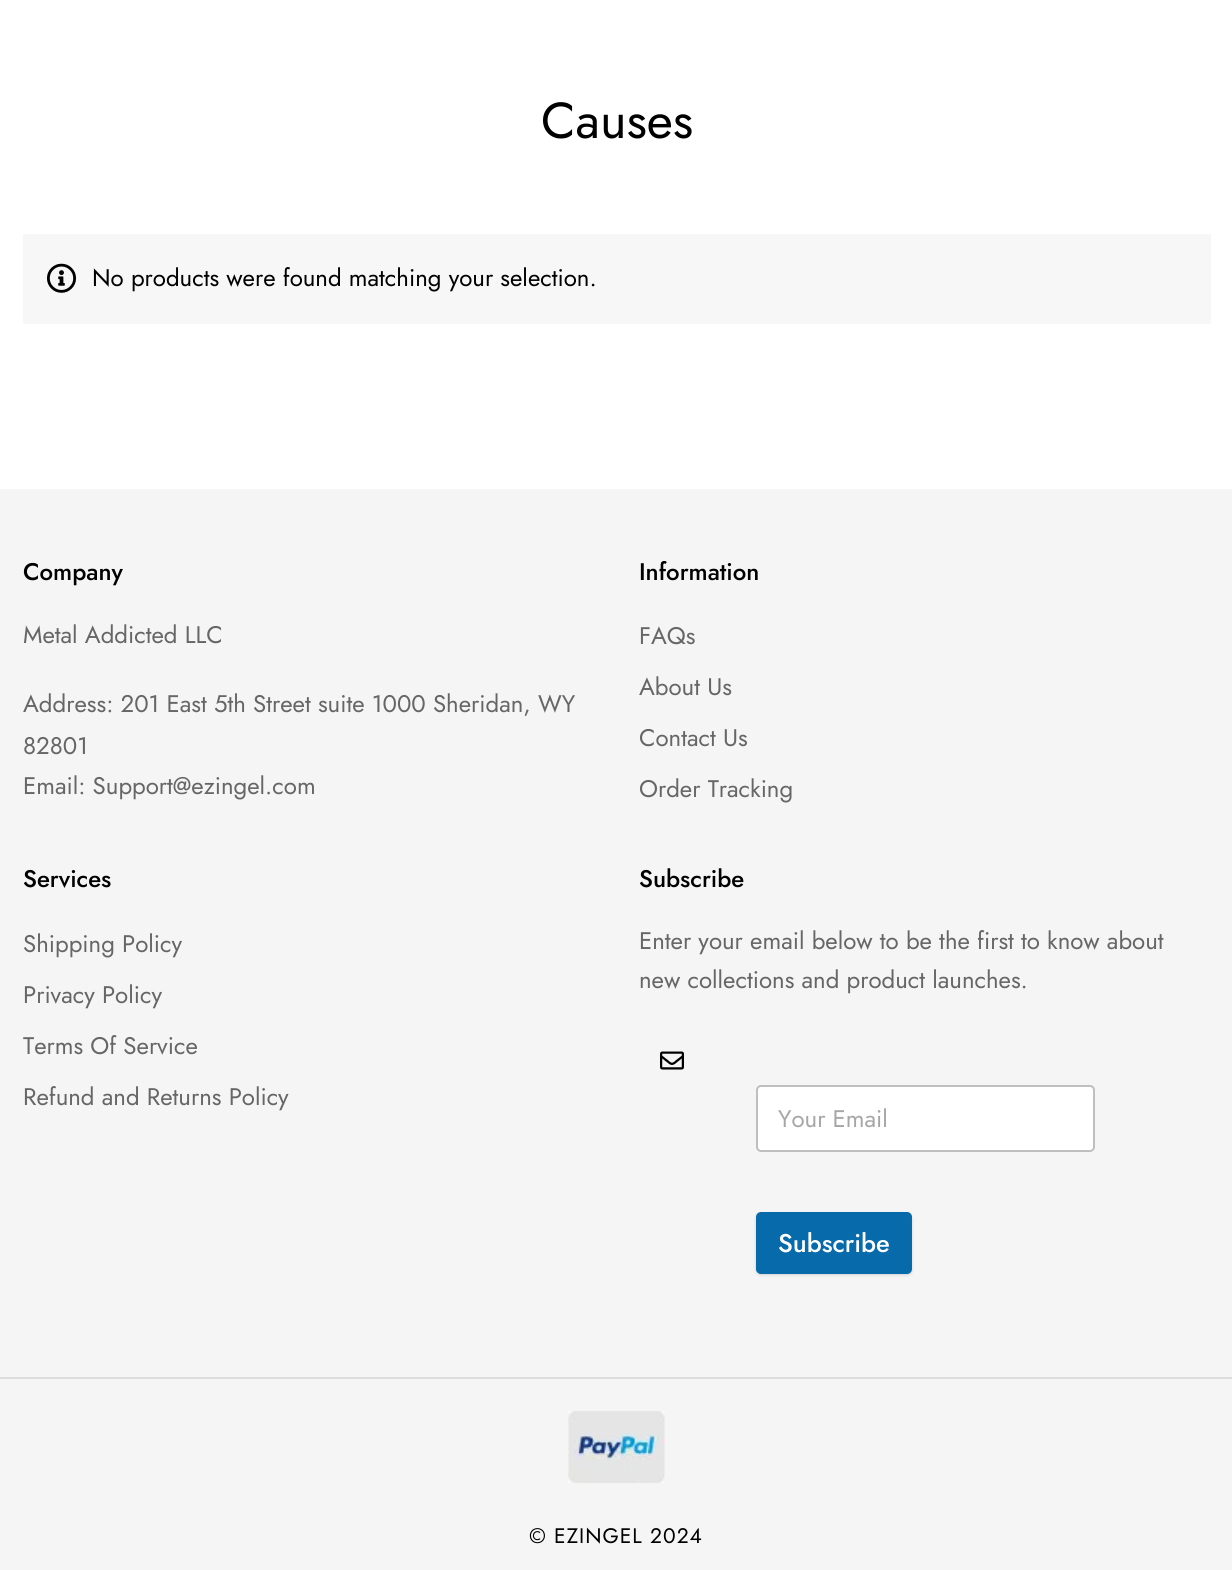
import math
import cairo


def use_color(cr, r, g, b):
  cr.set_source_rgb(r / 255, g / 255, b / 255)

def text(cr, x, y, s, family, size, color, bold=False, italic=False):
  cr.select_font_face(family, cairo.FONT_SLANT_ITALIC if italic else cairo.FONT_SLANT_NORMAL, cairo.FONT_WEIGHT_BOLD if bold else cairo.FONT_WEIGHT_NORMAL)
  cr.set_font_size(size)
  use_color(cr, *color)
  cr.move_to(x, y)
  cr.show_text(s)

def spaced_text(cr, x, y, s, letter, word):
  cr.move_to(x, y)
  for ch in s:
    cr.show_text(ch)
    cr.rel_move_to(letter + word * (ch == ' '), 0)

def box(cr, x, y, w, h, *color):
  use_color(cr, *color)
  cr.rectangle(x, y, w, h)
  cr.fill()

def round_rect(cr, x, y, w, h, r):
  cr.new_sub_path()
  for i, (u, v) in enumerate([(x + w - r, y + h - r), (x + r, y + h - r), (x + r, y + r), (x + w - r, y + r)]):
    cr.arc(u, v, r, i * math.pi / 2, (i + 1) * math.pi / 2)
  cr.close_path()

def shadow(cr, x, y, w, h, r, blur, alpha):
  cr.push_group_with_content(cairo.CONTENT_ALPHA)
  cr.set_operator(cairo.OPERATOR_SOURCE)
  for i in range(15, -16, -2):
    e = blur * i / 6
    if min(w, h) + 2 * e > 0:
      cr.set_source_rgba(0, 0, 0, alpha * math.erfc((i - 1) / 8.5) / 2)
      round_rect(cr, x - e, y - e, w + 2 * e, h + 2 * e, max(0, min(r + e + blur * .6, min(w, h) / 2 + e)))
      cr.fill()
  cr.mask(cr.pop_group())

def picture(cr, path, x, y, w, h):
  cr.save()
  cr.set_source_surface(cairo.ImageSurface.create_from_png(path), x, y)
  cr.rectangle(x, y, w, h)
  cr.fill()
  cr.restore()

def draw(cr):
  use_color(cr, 255, 255, 255)
  cr.paint()
  box(cr, 23, 234, 1188, 90, 247, 247, 247)
  picture(cr, "img_01.png", 47, 263, 29, 30)
  box(cr, 0, 489, 1232, 888, 245, 245, 245)
  picture(cr, "img_02.png", 660, 1051, 24, 19)
  use_color(cr, 255, 255, 255)
  round_rect(cr, 756, 1085, 339, 67, 5)
  cr.fill()
  round_rect(cr, 757, 1086, 337, 65, 4)
  cr.set_source_rgba(0, 0, 0, 0.25)
  cr.stroke()
  use_color(cr, 0, 0, 0)
  shadow(cr, 756, 1214, 156, 61, 5, 1.5, 0.15)
  use_color(cr, 6, 106, 171)
  round_rect(cr, 756, 1212, 156, 62, 5)
  cr.fill()
  box(cr, 0, 1379, 1232, 191, 245, 245, 245)
  box(cr, 0, 1377, 1232, 2, 222, 222, 222)
  picture(cr, "img_03.png", 568, 1411, 97, 72)
  text(cr, 541, 138, "Causes", "Jost", 50.5, (0, 0, 0))
  text(cr, 92, 286, "No products were found matching your selection.", "Jost", 24, (0, 0, 0))
  text(cr, 23, 580, "Company", "Jost Medium", 24, (0, 0, 0))
  text(cr, 23, 643, "Metal Addicted LLC", "Jost", 24, (102, 102, 102))
  text(cr, 23, 712, "Address: 201 East 5th Street suite 1000 Sheridan, WY", "Jost", 24, (102, 102, 102))
  text(cr, 23, 754, "82801", "Jost", 24, (102, 102, 102))
  text(cr, 23, 794, "Email: Support@ezingel.com", "Jost", 24, (102, 102, 102))
  text(cr, 639, 580, "Information", "Jost Medium", 24, (0, 0, 0))
  text(cr, 639, 644, "FAQs", "Jost", 24, (102, 102, 102))
  text(cr, 639, 695, "About Us", "Jost", 24, (102, 102, 102))
  text(cr, 639, 746, "Contact Us", "Jost", 24, (102, 102, 102))
  text(cr, 639, 797, "Order Tracking", "Jost", 24, (102, 102, 102))
  text(cr, 23, 887, "Services", "Jost Medium", 24, (0, 0, 0))
  text(cr, 23, 952, "Shipping Policy", "Jost", 24, (102, 102, 102))
  text(cr, 23, 1003, "Privacy Policy", "Jost", 24, (102, 102, 102))
  text(cr, 23, 1054, "Terms Of Service", "Jost", 24, (102, 102, 102))
  text(cr, 23, 1105, "Refund and Returns Policy", "Jost", 24, (102, 102, 102))
  text(cr, 639, 887, "Subscribe", "Jost Medium", 24, (0, 0, 0))
  text(cr, 639, 949, "Enter your email below to be the first to know about", "Jost", 24, (102, 102, 102))
  text(cr, 639, 988, "new collections and product launches.", "Jost", 24, (102, 102, 102))
  text(cr, 778, 1127, "Your Email", "Jost", 24, (166, 166, 166))
  text(cr, 778, 1252, "Subscribe", "Jost Medium", 25.5, (255, 255, 255))
  cr.select_font_face("Jost")
  cr.set_font_size(21)
  use_color(cr, 0, 0, 0)
  spaced_text(cr, 529, 1543, "© EZINGEL 2024", 1, 0)


surface = cairo.ImageSurface(cairo.FORMAT_RGB24, 1232, 1570)
cr = cairo.Context(surface)
options = cairo.FontOptions()
options.set_hint_metrics(cairo.HINT_METRICS_OFF)
options.set_hint_style(cairo.HINT_STYLE_NONE)
cr.set_font_options(options)
cr.set_miter_limit(4)
draw(cr)
surface.write_to_png("out.png")
